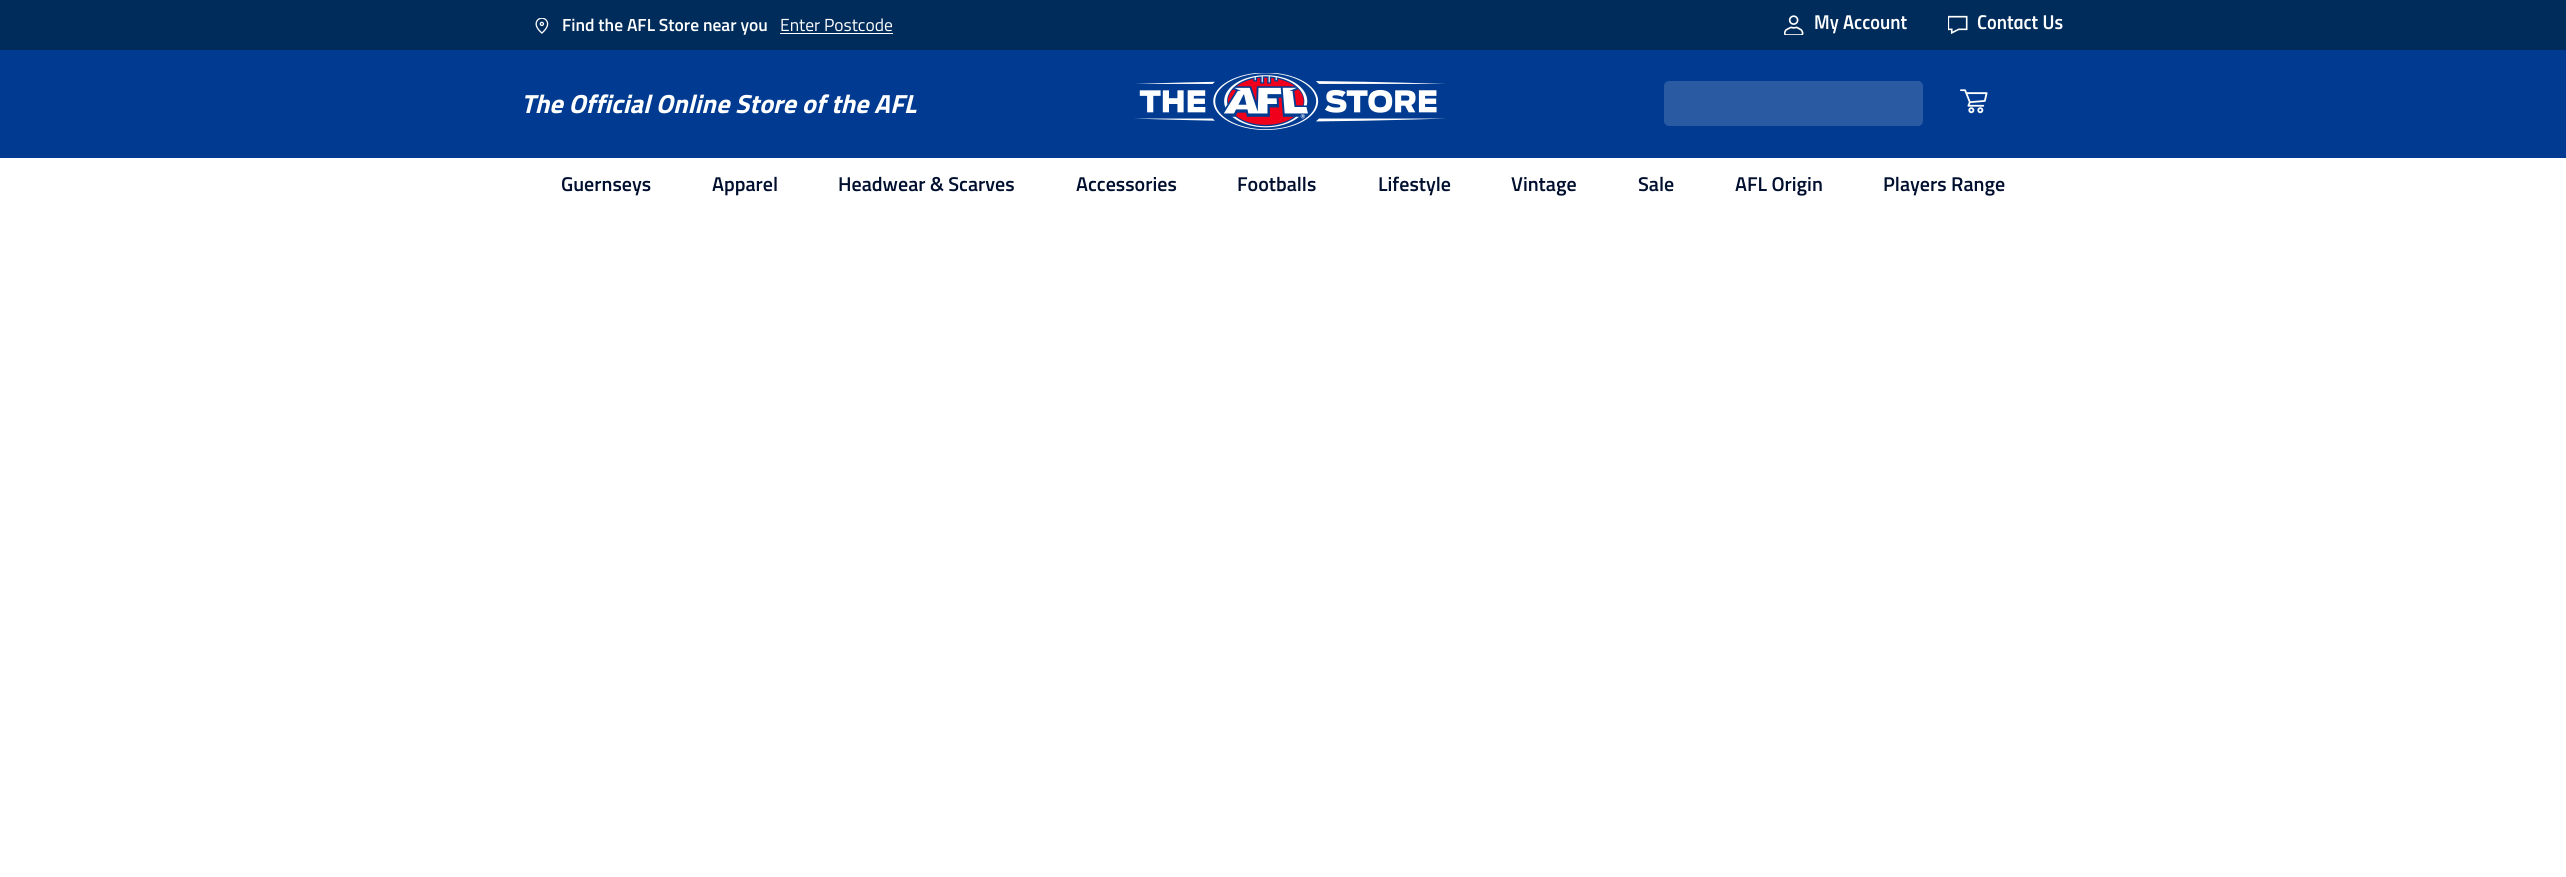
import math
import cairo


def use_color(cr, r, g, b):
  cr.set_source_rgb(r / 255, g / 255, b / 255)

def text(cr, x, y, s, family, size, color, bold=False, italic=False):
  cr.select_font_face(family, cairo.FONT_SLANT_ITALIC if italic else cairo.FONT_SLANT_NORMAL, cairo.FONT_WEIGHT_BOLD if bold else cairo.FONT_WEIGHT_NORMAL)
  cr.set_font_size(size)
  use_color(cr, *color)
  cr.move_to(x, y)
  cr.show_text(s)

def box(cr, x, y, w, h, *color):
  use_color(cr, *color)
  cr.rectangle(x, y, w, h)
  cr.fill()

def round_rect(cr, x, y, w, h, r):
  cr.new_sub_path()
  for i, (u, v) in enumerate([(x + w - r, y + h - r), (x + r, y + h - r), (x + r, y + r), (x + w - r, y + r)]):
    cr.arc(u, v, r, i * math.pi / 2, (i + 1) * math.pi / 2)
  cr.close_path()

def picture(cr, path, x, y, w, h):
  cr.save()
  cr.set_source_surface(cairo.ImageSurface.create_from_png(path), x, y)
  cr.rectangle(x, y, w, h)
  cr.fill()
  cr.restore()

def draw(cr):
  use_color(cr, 255, 255, 255)
  cr.paint()
  box(cr, 0, 0, 2566, 50, 0, 44, 91)
  picture(cr, "img_01.png", 535, 18, 14, 16)
  box(cr, 780, 33, 113, 1, 255, 255, 255)
  picture(cr, "img_02.png", 1784, 15, 20, 20)
  picture(cr, "img_03.png", 1948, 15, 20, 19)
  box(cr, 0, 50, 2566, 108, 0, 59, 145)
  picture(cr, "img_04.png", 1134, 73, 312, 57)
  use_color(cr, 41, 90, 162)
  round_rect(cr, 1664, 81, 259, 45, 5)
  cr.fill()
  picture(cr, "img_05.png", 1960, 89, 28, 25)
  text(cr, 562, 31, "Find the AFL Store near you", "Titillium Web SemiBold", 17.5, (255, 255, 255))
  text(cr, 780, 31, "Enter Postcode", "Titillium Web", 17.5, (255, 255, 255))
  text(cr, 1814, 29, "My Account", "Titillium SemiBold", 20, (255, 255, 255), italic=True)
  text(cr, 1977, 29, "Contact Us", "Titillium SemiBold", 20, (255, 255, 255), italic=True)
  text(cr, 521, 113, "The Official Online Store of the AFL", "Titillium Web", 26.25, (255, 255, 255), bold=True, italic=True)
  text(cr, 561, 191, "Guernseys", "Titillium Web SemiBold", 20, (1, 15, 47))
  text(cr, 712, 191, "Apparel", "Titillium Web SemiBold", 20, (1, 15, 47))
  text(cr, 838, 191, "Headwear & Scarves", "Titillium Web SemiBold", 20, (1, 15, 47))
  text(cr, 1076, 191, "Accessories", "Titillium Web SemiBold", 20, (1, 15, 47))
  text(cr, 1237, 191, "Footballs", "Titillium Web SemiBold", 20, (1, 15, 47))
  text(cr, 1378, 191, "Lifestyle", "Titillium Web SemiBold", 20, (1, 15, 47))
  text(cr, 1511, 191, "Vintage", "Titillium Web SemiBold", 20, (1, 15, 47))
  text(cr, 1638, 191, "Sale", "Titillium Web SemiBold", 20, (1, 15, 47))
  text(cr, 1735, 191, "AFL Origin", "Titillium Web SemiBold", 20, (1, 15, 47))
  text(cr, 1883, 191, "Players Range", "Titillium Web SemiBold", 20, (1, 15, 47))


surface = cairo.ImageSurface(cairo.FORMAT_RGB24, 2566, 877)
cr = cairo.Context(surface)
options = cairo.FontOptions()
options.set_hint_metrics(cairo.HINT_METRICS_OFF)
options.set_hint_style(cairo.HINT_STYLE_NONE)
cr.set_font_options(options)
cr.set_miter_limit(4)
draw(cr)
surface.write_to_png("out.png")
